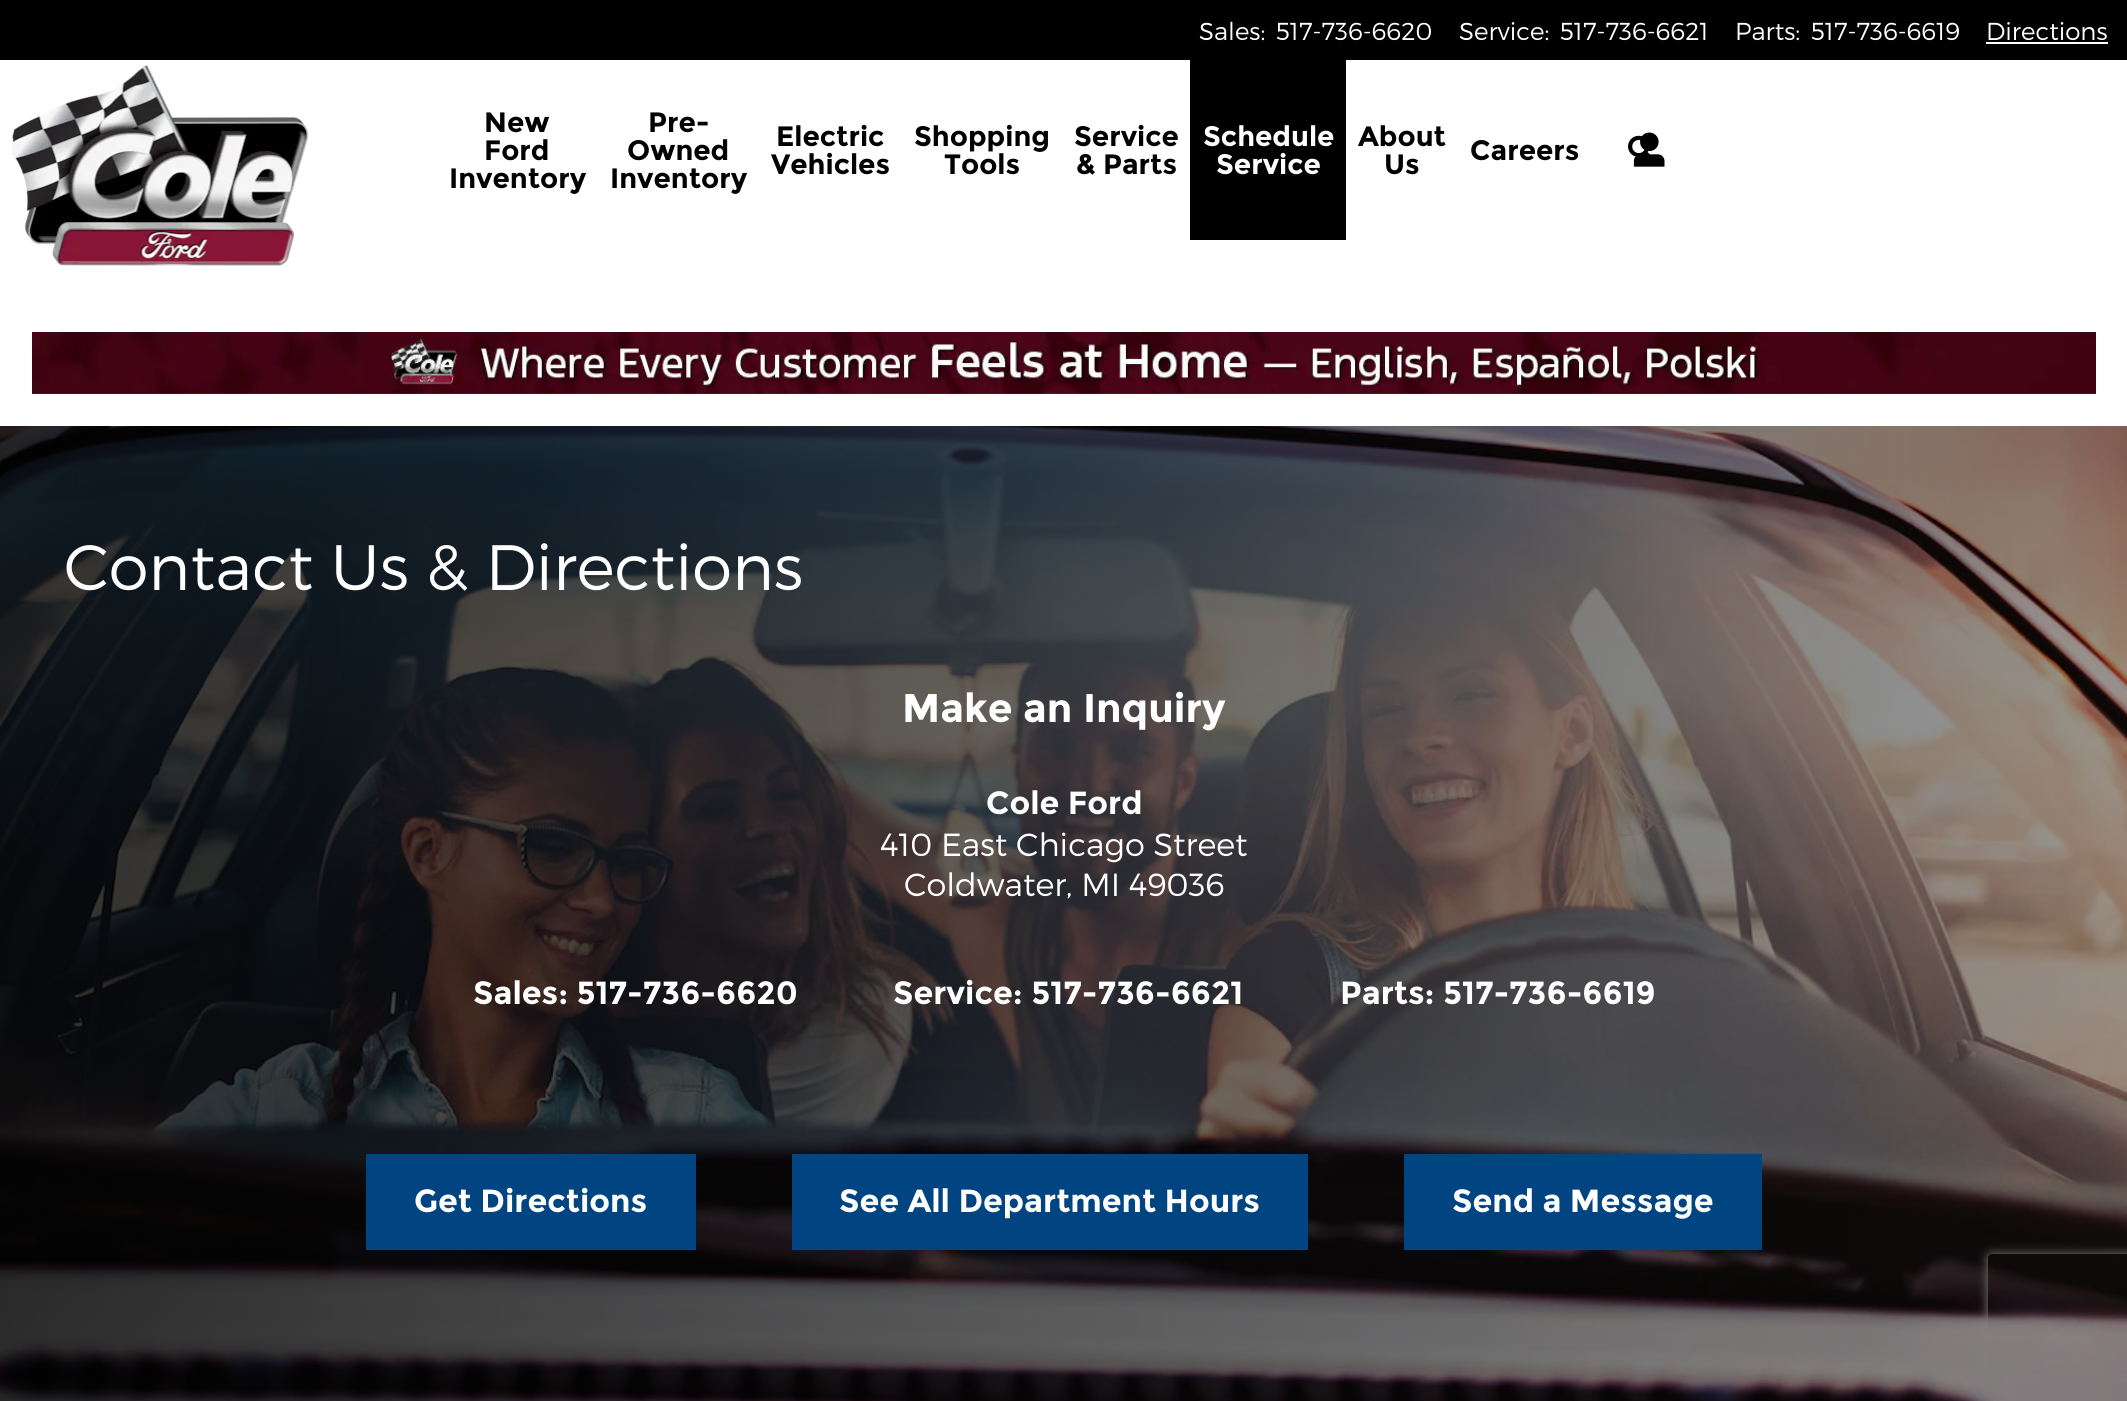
import math
import cairo


def use_color(cr, r, g, b):
  cr.set_source_rgb(r / 255, g / 255, b / 255)

def text(cr, x, y, s, family, size, color, bold=False, italic=False):
  cr.select_font_face(family, cairo.FONT_SLANT_ITALIC if italic else cairo.FONT_SLANT_NORMAL, cairo.FONT_WEIGHT_BOLD if bold else cairo.FONT_WEIGHT_NORMAL)
  cr.set_font_size(size)
  use_color(cr, *color)
  cr.move_to(x, y)
  cr.show_text(s)

def box(cr, x, y, w, h, *color):
  use_color(cr, *color)
  cr.rectangle(x, y, w, h)
  cr.fill()

def round_rect(cr, x, y, w, h, r):
  cr.new_sub_path()
  for i, (u, v) in enumerate([(x + w - r, y + h - r), (x + r, y + h - r), (x + r, y + r), (x + w - r, y + r)]):
    cr.arc(u, v, r, i * math.pi / 2, (i + 1) * math.pi / 2)
  cr.close_path()

def shadow(cr, x, y, w, h, r, blur, alpha):
  cr.push_group_with_content(cairo.CONTENT_ALPHA)
  cr.set_operator(cairo.OPERATOR_SOURCE)
  for i in range(15, -16, -2):
    e = blur * i / 6
    if min(w, h) + 2 * e > 0:
      cr.set_source_rgba(0, 0, 0, alpha * math.erfc((i - 1) / 8.5) / 2)
      round_rect(cr, x - e, y - e, w + 2 * e, h + 2 * e, max(0, min(r + e + blur * .6, min(w, h) / 2 + e)))
      cr.fill()
  cr.mask(cr.pop_group())

def picture(cr, path, x, y, w, h):
  cr.save()
  cr.set_source_surface(cairo.ImageSurface.create_from_png(path), x, y)
  cr.rectangle(x, y, w, h)
  cr.fill()
  cr.restore()

def draw(cr):
  use_color(cr, 255, 255, 255)
  cr.paint()
  box(cr, 0, 0, 2127, 60, 0, 0, 0)
  box(cr, 1986, 42, 122, 2, 255, 255, 255)
  picture(cr, "img_01.png", 11, 65, 298, 201)
  box(cr, 1190, 60, 156, 180, 0, 0, 0)
  picture(cr, "img_02.png", 1628, 135, 23, 22)
  picture(cr, "img_03.png", 1633, 132, 32, 35)
  picture(cr, "img_04.png", 32, 332, 2064, 62)
  picture(cr, "img_05.png", 0, 426, 2127, 975)
  box(cr, 366, 1154, 330, 96, 0, 69, 130)
  box(cr, 792, 1154, 516, 96, 0, 69, 130)
  box(cr, 1404, 1154, 358, 96, 0, 69, 130)
  cr.save()
  cr.set_fill_rule(cairo.FILL_RULE_EVEN_ODD)
  cr.new_path()
  cr.move_to(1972, 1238)
  cr.line_to(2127, 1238)
  cr.line_to(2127, 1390)
  cr.line_to(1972, 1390)
  cr.close_path()
  cr.move_to(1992, 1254)
  cr.line_to(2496, 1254)
  cr.curve_to(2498, 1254, 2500, 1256, 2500, 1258)
  cr.line_to(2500, 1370)
  cr.curve_to(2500, 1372, 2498, 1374, 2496, 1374)
  cr.line_to(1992, 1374)
  cr.curve_to(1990, 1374, 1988, 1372, 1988, 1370)
  cr.line_to(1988, 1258)
  cr.curve_to(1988, 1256, 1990, 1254, 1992, 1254)
  cr.close_path()
  cr.clip()
  use_color(cr, 128, 128, 128)
  shadow(cr, 1988, 1254, 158, 120, 4, 5, 1)
  cr.restore()
  text(cr, 1199, 40, "Sales:", "Montserrat Light", 24.5, (255, 255, 255))
  text(cr, 1276, 40, "517-736-6620", "Montserrat Light", 24.5, (255, 255, 255))
  text(cr, 1459, 40, "Service:", "Montserrat Light", 24.5, (255, 255, 255))
  text(cr, 1560, 40, "517-736-6621", "Montserrat Light", 24.5, (255, 255, 255))
  text(cr, 1735, 40, "Parts:", "Montserrat Light", 24.5, (255, 255, 255))
  text(cr, 1811, 40, "517-736-6619", "Montserrat Light", 24.5, (255, 255, 255))
  text(cr, 1986, 40, "Directions", "Montserrat Light", 24.5, (255, 255, 255))
  text(cr, 484, 132, "New", "Montserrat", 28, (0, 0, 0), bold=True)
  text(cr, 484, 160, "Ford", "Montserrat", 28, (0, 0, 0), bold=True)
  text(cr, 449, 188, "Inventory", "Montserrat", 28, (0, 0, 0), bold=True)
  text(cr, 648, 132, "Pre-", "Montserrat", 28, (0, 0, 0), bold=True)
  text(cr, 627, 160, "Owned", "Montserrat", 28, (0, 0, 0), bold=True)
  text(cr, 610, 188, "Inventory", "Montserrat", 28, (0, 0, 0), bold=True)
  text(cr, 776, 146, "Electric", "Montserrat", 28, (0, 0, 0), bold=True)
  text(cr, 771, 174, "Vehicles", "Montserrat", 28, (0, 0, 0), bold=True)
  text(cr, 914, 146, "Shopping", "Montserrat", 28, (0, 0, 0), bold=True)
  text(cr, 944, 174, "Tools", "Montserrat", 28, (0, 0, 0), bold=True)
  text(cr, 1074, 146, "Service", "Montserrat", 28, (0, 0, 0), bold=True)
  text(cr, 1076, 174, "& Parts", "Montserrat", 28, (0, 0, 0), bold=True)
  text(cr, 1203, 146, "Schedule", "Montserrat", 28, (255, 255, 255), bold=True)
  text(cr, 1216, 174, "Service", "Montserrat", 28, (255, 255, 255), bold=True)
  text(cr, 1358, 146, "About", "Montserrat", 28, (0, 0, 0), bold=True)
  text(cr, 1384, 174, "Us", "Montserrat", 28, (0, 0, 0), bold=True)
  text(cr, 1470, 160, "Careers", "Montserrat", 28, (0, 0, 0), bold=True)
  text(cr, 64, 590, "Contact Us & Directions", "Montserrat Light", 64, (255, 255, 255))
  text(cr, 902, 722, "Make an Inquiry", "Montserrat", 40, (255, 255, 255), bold=True)
  text(cr, 986, 814, "Cole Ford", "Montserrat", 32, (255, 255, 255), bold=True)
  text(cr, 880, 856, "410 East Chicago Street", "Montserrat Light", 32, (255, 255, 255))
  text(cr, 904, 896, "Coldwater, MI 49036", "Montserrat Light", 32, (255, 255, 255))
  text(cr, 473, 1004, "Sales: 517-736-6620", "Montserrat", 32, (255, 255, 255), bold=True)
  text(cr, 893, 1004, "Service: 517-736-6621", "Montserrat", 32, (255, 255, 255), bold=True)
  text(cr, 1340, 1004, "Parts: 517-736-6619", "Montserrat", 32, (255, 255, 255), bold=True)
  text(cr, 414, 1212, "Get Directions", "Montserrat", 32, (255, 255, 255), bold=True)
  text(cr, 839, 1212, "See All Department Hours", "Montserrat", 32, (255, 255, 255), bold=True)
  text(cr, 1452, 1212, "Send a Message", "Montserrat", 32, (255, 255, 255), bold=True)


surface = cairo.ImageSurface(cairo.FORMAT_RGB24, 2127, 1401)
cr = cairo.Context(surface)
options = cairo.FontOptions()
options.set_hint_metrics(cairo.HINT_METRICS_OFF)
options.set_hint_style(cairo.HINT_STYLE_NONE)
cr.set_font_options(options)
cr.set_miter_limit(4)
draw(cr)
surface.write_to_png("out.png")
